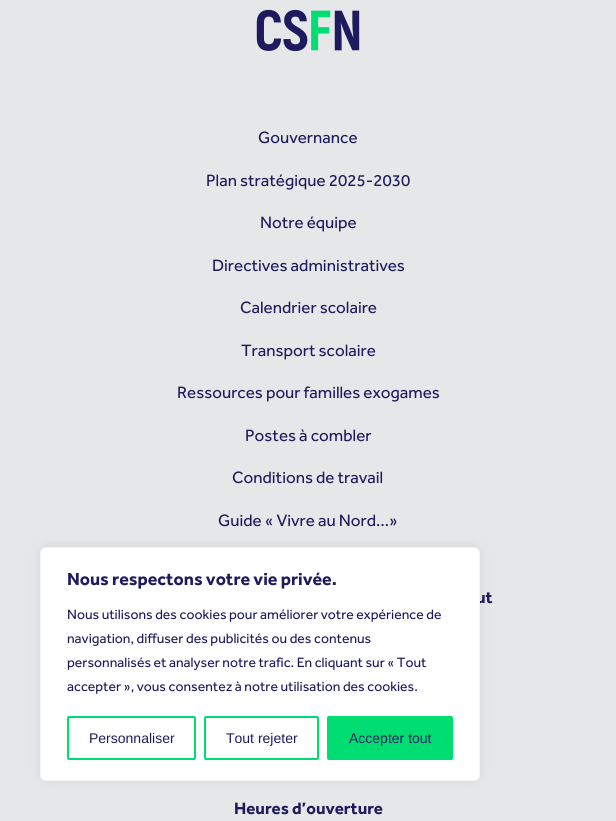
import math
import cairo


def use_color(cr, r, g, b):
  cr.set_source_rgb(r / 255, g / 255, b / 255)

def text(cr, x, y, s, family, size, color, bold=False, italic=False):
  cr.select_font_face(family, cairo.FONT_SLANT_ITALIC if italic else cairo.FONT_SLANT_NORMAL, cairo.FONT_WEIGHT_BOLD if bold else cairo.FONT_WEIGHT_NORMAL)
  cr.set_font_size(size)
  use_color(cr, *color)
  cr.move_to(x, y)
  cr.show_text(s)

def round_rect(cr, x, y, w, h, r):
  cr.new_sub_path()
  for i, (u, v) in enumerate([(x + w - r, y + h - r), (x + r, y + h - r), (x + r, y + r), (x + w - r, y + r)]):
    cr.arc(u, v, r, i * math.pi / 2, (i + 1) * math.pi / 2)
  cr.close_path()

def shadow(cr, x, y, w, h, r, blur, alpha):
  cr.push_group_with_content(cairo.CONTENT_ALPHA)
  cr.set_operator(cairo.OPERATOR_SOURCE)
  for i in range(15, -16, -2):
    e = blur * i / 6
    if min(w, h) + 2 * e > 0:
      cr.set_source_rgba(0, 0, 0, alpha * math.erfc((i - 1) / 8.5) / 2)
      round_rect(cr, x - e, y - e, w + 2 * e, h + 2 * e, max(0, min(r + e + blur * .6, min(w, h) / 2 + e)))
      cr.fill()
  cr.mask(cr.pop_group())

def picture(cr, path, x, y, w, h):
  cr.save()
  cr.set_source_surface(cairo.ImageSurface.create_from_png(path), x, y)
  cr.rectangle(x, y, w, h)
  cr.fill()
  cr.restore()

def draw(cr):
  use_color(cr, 230, 231, 232)
  cr.paint()
  picture(cr, "img_01.png", 256, 9, 104, 43)
  use_color(cr, 172, 171, 171)
  shadow(cr, 40, 546, 440, 234, 6, 5, 0.3)
  text(cr, 258, 143, "Gouvernance", "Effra", 17, (29, 27, 94))
  text(cr, 206, 186, "Plan stratégique 2025-2030", "Effra", 17, (29, 27, 94))
  text(cr, 260, 228, "Notre équipe", "Effra", 17, (29, 27, 94))
  text(cr, 212, 271, "Directives administratives", "Effra", 17, (29, 27, 94))
  text(cr, 240, 313, "Calendrier scolaire", "Effra", 17, (29, 27, 94))
  text(cr, 241, 356, "Transport scolaire", "Effra", 17, (29, 27, 94))
  text(cr, 177, 398, "Ressources pour familles exogames", "Effra", 17, (29, 27, 94))
  text(cr, 245, 441, "Postes à combler", "Effra", 17, (29, 27, 94))
  text(cr, 232, 483, "Conditions de travail", "Effra", 17, (29, 27, 94))
  text(cr, 218, 526, "Guide « Vivre au Nord…»", "Effra", 17, (29, 27, 94))
  text(cr, 476, 603, "ut", "Effra", 17, (29, 27, 94), bold=True)
  text(cr, 234, 814, "Heures d’ouverture", "Effra", 17, (29, 27, 94), bold=True)
  use_color(cr, 255, 255, 255)
  round_rect(cr, 40.5, 547.5, 439, 233, 5.5)
  cr.fill_preserve()
  use_color(cr, 244, 244, 244)
  cr.set_line_width(1)
  cr.stroke()
  text(cr, 67, 585, "Nous respectons votre vie privée.", "Effra", 18, (29, 27, 94), bold=True)
  text(cr, 67, 619, "Nous utilisons des cookies pour améliorer votre expérience de", "Effra", 14, (29, 27, 94))
  text(cr, 67, 643, "navigation, diffuser des publicités ou des contenus", "Effra", 14, (29, 27, 94))
  text(cr, 67, 667, "personnalisés et analyser notre trafic. En cliquant sur « Tout", "Effra", 14, (29, 27, 94))
  text(cr, 67, 691, "accepter », vous consentez à notre utilisation des cookies.", "Effra", 14, (29, 27, 94))
  round_rect(cr, 68, 717, 127, 42, 1)
  use_color(cr, 0, 222, 115)
  cr.set_line_width(2)
  cr.stroke()
  text(cr, 89, 743, "Personnaliser", "Liberation Sans", 14, (29, 27, 94))
  round_rect(cr, 205, 717, 113, 42, 1)
  use_color(cr, 0, 222, 115)
  cr.stroke()
  text(cr, 226, 743, "Tout rejeter", "Liberation Sans", 14, (29, 27, 94))
  use_color(cr, 0, 222, 115)
  round_rect(cr, 328, 717, 124, 42, 1)
  cr.fill_preserve()
  cr.stroke()
  text(cr, 349, 743, "Accepter tout", "Liberation Sans", 14, (29, 27, 94))


surface = cairo.ImageSurface(cairo.FORMAT_RGB24, 616, 821)
cr = cairo.Context(surface)
options = cairo.FontOptions()
options.set_hint_metrics(cairo.HINT_METRICS_OFF)
options.set_hint_style(cairo.HINT_STYLE_NONE)
cr.set_font_options(options)
cr.set_miter_limit(4)
draw(cr)
surface.write_to_png("out.png")
